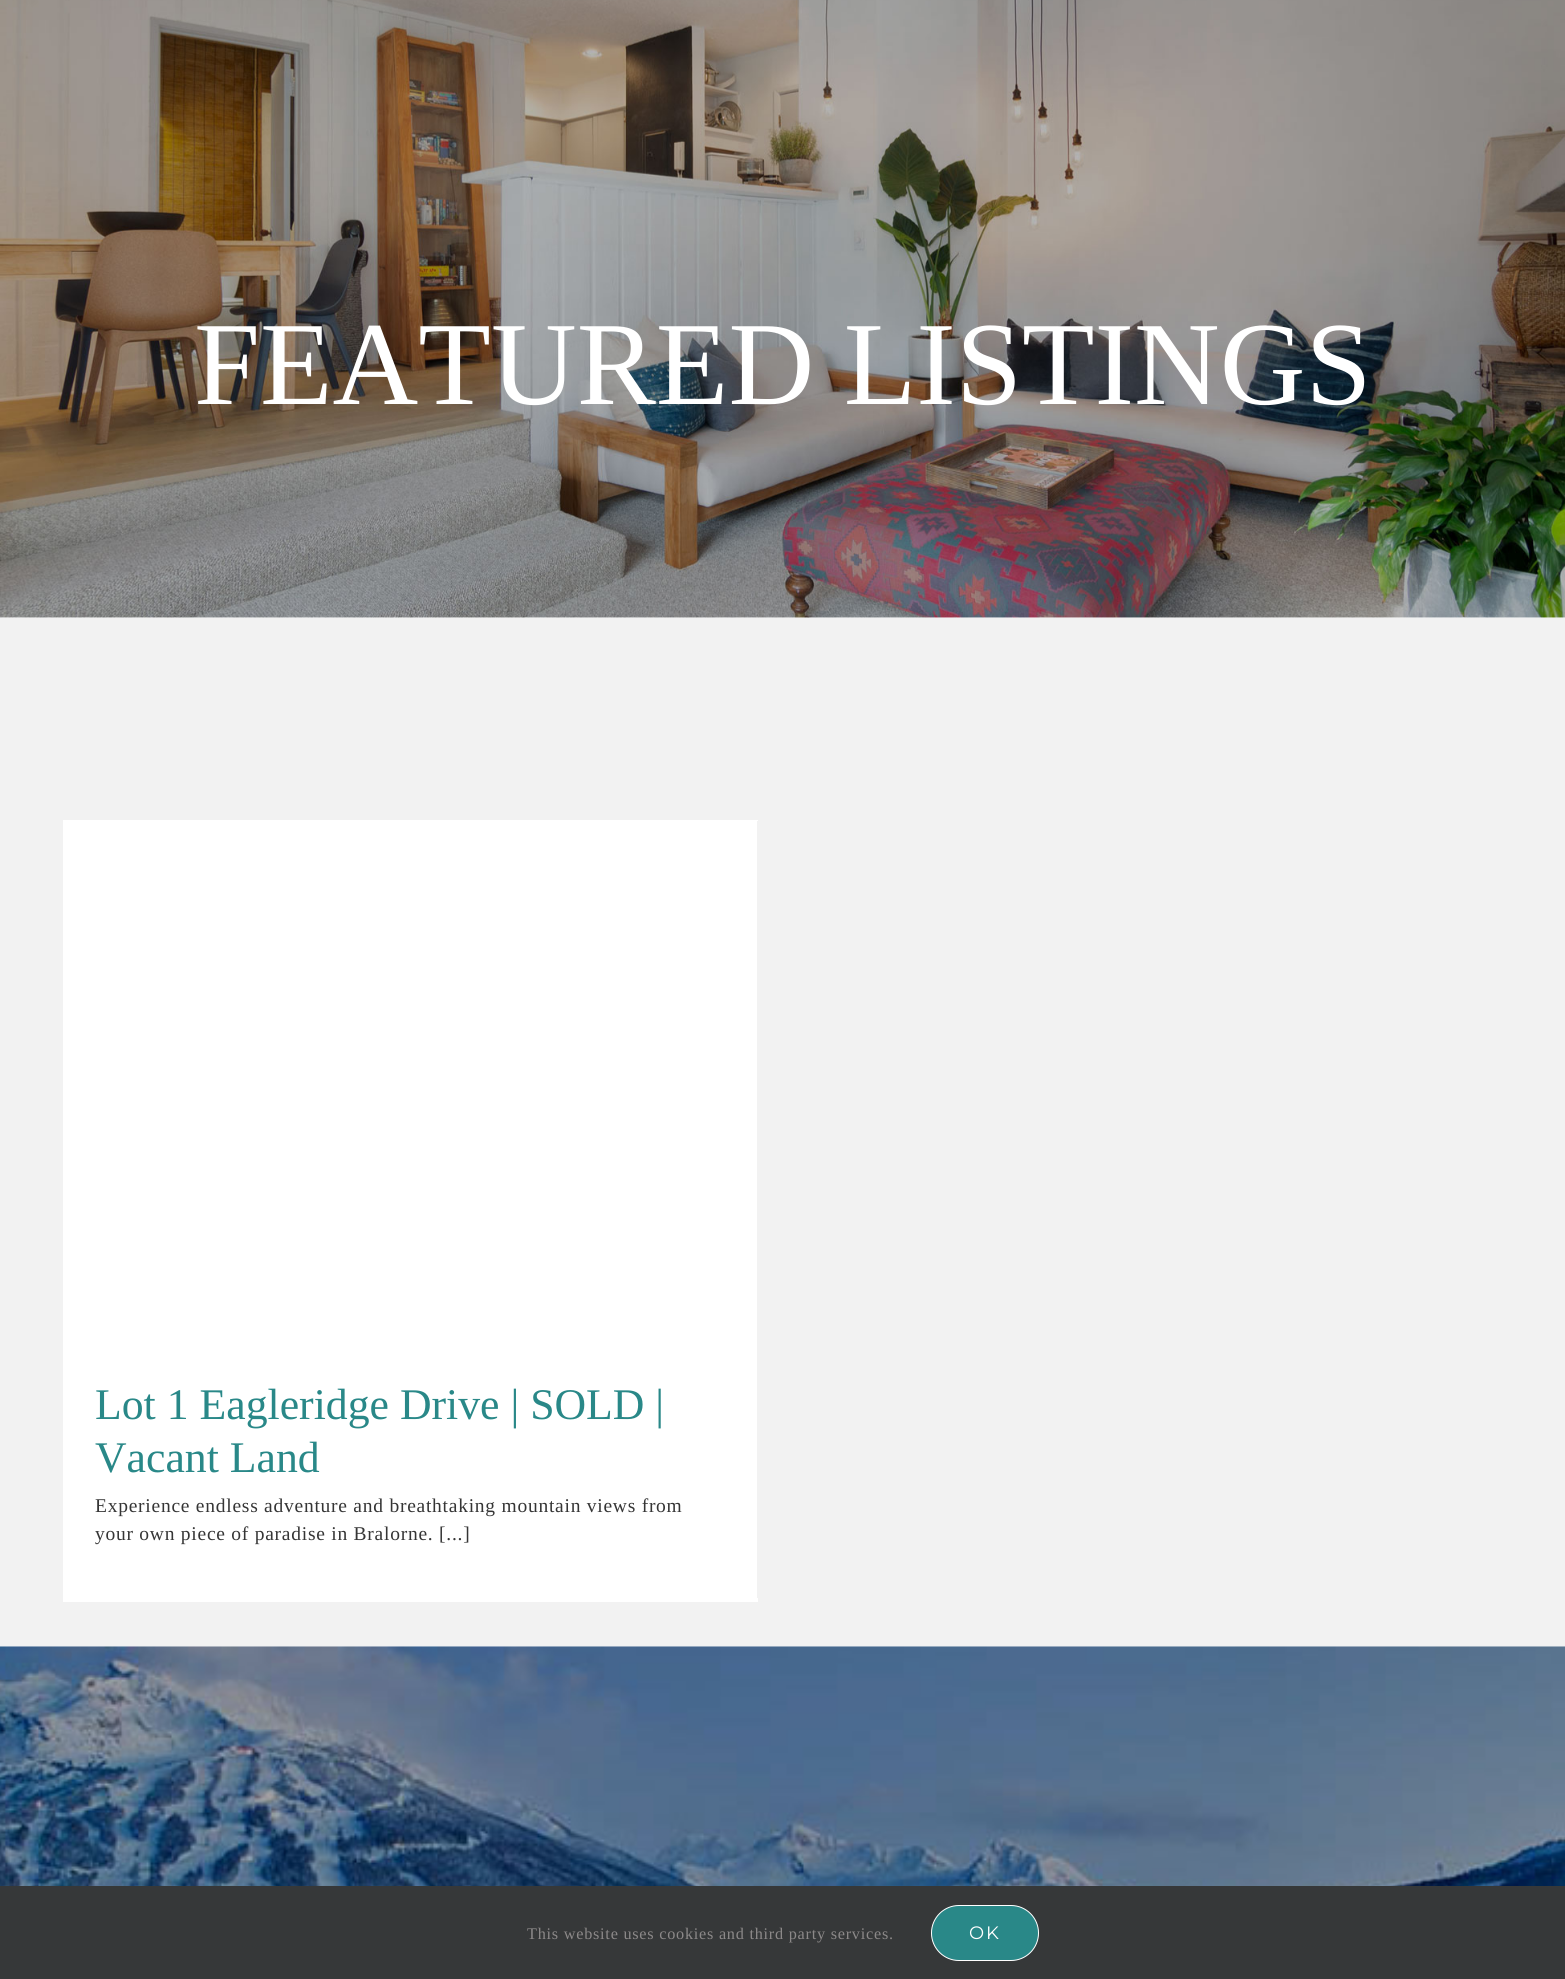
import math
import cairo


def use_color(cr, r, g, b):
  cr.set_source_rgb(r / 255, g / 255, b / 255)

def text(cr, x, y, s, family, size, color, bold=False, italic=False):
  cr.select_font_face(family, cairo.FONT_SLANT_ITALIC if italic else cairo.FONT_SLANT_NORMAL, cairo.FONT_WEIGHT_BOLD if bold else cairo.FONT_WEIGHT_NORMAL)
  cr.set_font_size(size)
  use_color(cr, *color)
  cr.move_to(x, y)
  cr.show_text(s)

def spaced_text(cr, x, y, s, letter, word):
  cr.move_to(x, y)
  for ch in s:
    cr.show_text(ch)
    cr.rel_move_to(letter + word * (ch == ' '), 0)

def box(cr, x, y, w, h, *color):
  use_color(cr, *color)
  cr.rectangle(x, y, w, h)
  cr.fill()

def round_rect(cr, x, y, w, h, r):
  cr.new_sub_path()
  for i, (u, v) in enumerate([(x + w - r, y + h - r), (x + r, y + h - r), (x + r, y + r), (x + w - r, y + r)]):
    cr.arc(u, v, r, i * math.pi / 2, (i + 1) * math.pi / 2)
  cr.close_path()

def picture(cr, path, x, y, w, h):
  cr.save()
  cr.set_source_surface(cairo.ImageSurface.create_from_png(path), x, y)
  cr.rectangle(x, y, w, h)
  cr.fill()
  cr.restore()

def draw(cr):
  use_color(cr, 255, 255, 255)
  cr.paint()
  picture(cr, "img_01.png", 0, 0, 1565, 618)
  box(cr, 0, 618, 1565, 1028, 242, 242, 242)
  box(cr, 64, 821, 692, 777, 255, 255, 255)
  box(cr, 63, 820, 695, 1, 255, 255, 255)
  box(cr, 756, 820, 1, 781, 255, 255, 255)
  box(cr, 63, 1598, 695, 4, 255, 255, 255)
  box(cr, 63, 820, 1, 781, 255, 255, 255)
  picture(cr, "img_02.png", 0, 1646, 1565, 240)
  box(cr, 0, 1886, 1565, 93, 54, 56, 57)
  use_color(cr, 41, 136, 136)
  round_rect(cr, 931.5, 1905.5, 107, 55, 27.5)
  cr.fill_preserve()
  use_color(cr, 255, 255, 255)
  cr.set_line_width(1)
  cr.stroke()
  text(cr, 194, 404, "FEATURED LISTINGS", "Liberation Serif", 118.75, (255, 255, 255))
  text(cr, 95, 1419, "Lot 1 Eagleridge Drive | SOLD |", "Liberation Serif", 43.75, (41, 136, 136))
  text(cr, 95, 1472, "Vacant Land", "Liberation Serif", 43.75, (41, 136, 136))
  cr.set_font_size(19.5)
  use_color(cr, 53, 53, 53)
  spaced_text(cr, 95, 1512, "Experience endless adventure and breathtaking mountain views from", 0.75, 0)
  spaced_text(cr, 95, 1540, "your own piece of paradise in Bralorne. [...]", 0.75, 0)
  cr.set_font_size(16.25)
  use_color(cr, 140, 137, 137)
  spaced_text(cr, 527, 1939, "This website uses cookies and third party services.", 0.75, 0)
  cr.select_font_face("Montserrat Thin")
  cr.set_font_size(18)
  use_color(cr, 255, 255, 255)
  spaced_text(cr, 969, 1939, "OK", 2, 0)


surface = cairo.ImageSurface(cairo.FORMAT_RGB24, 1565, 1979)
cr = cairo.Context(surface)
options = cairo.FontOptions()
options.set_hint_metrics(cairo.HINT_METRICS_OFF)
options.set_hint_style(cairo.HINT_STYLE_NONE)
cr.set_font_options(options)
cr.set_miter_limit(4)
draw(cr)
surface.write_to_png("out.png")
